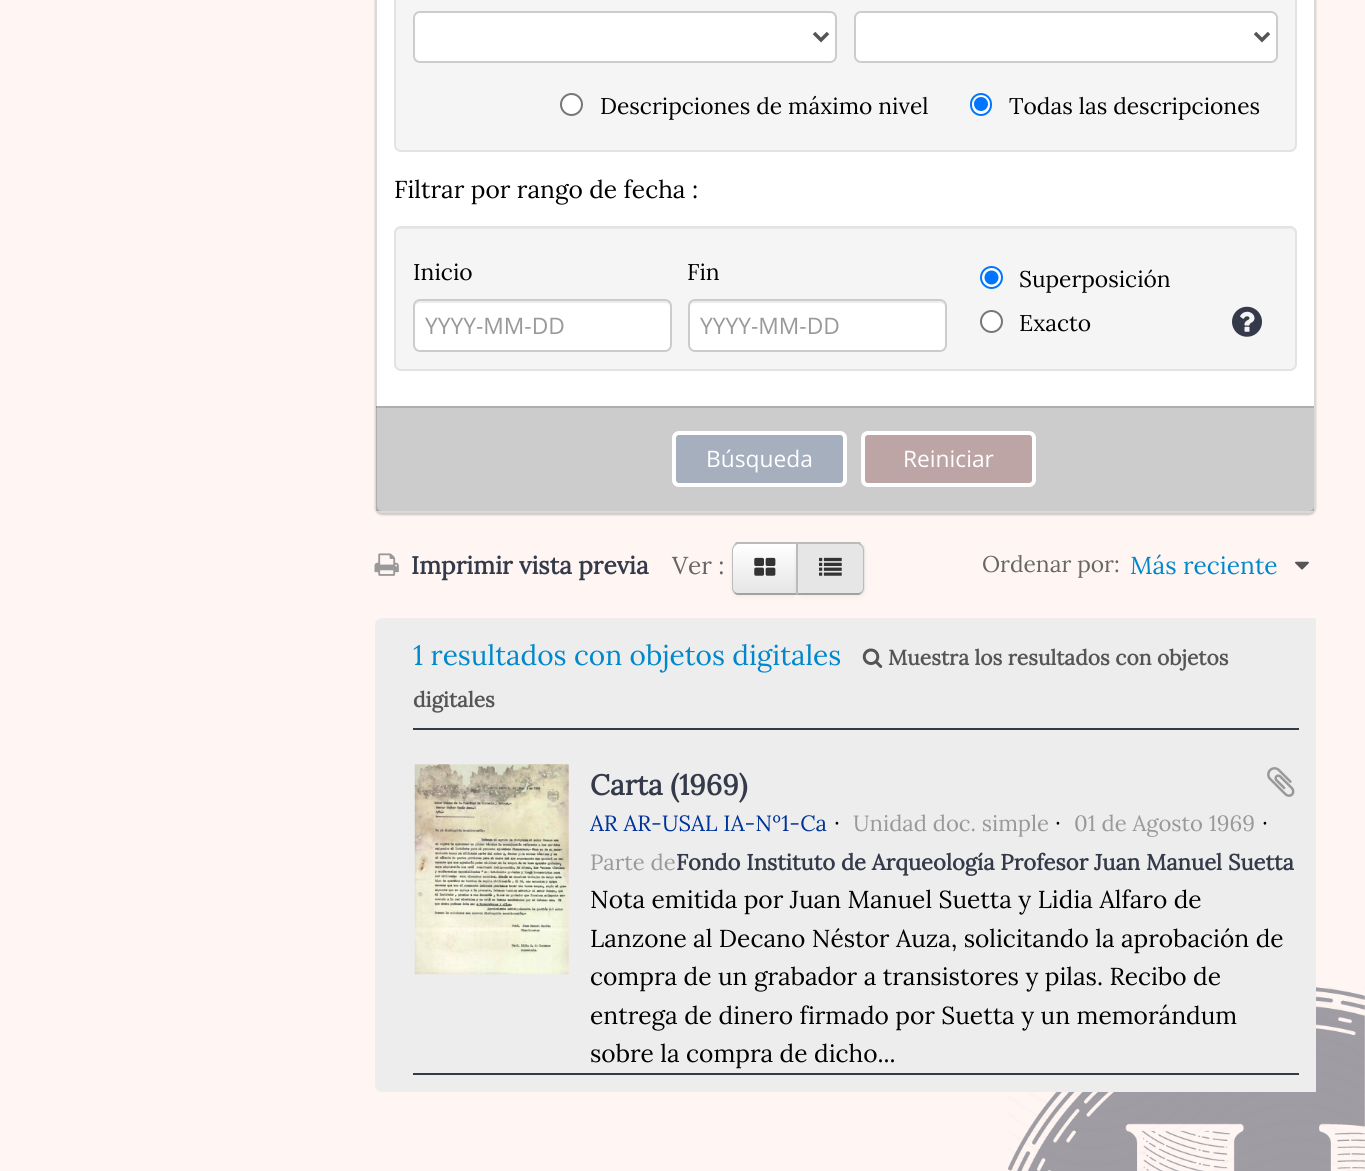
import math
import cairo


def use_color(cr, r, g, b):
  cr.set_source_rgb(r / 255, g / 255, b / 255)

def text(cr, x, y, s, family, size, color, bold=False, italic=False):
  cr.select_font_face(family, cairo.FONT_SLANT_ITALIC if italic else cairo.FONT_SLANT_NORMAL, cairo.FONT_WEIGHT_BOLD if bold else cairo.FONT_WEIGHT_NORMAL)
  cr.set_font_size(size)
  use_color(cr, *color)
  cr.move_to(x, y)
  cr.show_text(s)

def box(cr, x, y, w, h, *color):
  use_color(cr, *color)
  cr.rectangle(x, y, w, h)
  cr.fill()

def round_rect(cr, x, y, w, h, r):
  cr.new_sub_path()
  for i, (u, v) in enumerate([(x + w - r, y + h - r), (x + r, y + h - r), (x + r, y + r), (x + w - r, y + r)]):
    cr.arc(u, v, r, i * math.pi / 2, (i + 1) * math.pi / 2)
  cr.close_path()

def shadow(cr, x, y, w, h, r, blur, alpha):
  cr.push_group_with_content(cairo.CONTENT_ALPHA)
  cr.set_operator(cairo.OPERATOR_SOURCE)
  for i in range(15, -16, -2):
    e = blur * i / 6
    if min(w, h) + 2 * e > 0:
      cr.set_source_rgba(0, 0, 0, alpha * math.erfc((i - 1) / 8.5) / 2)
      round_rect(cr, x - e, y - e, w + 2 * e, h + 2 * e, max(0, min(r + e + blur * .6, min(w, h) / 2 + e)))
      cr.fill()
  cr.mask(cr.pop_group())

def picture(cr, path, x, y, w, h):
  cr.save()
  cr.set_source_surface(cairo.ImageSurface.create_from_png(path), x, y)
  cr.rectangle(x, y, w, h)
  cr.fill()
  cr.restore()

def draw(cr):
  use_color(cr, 255, 246, 243)
  cr.paint()
  picture(cr, "img_01.png", 1008, 987, 357, 184)
  use_color(cr, 0, 0, 0)
  shadow(cr, 375, -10, 941, 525, 7, 1, 0.2)
  use_color(cr, 255, 255, 255)
  round_rect(cr, 376, -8, 939, 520, 6)
  cr.fill_preserve()
  use_color(cr, 217, 217, 217)
  cr.stroke()
  use_color(cr, 245, 245, 245)
  round_rect(cr, 395, -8, 901, 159, 6)
  cr.fill_preserve()
  use_color(cr, 227, 227, 227)
  cr.stroke()
  use_color(cr, 255, 255, 255)
  round_rect(cr, 414, 12, 422, 50, 6)
  cr.fill_preserve()
  use_color(cr, 204, 204, 204)
  cr.stroke()
  cr.new_path()
  cr.move_to(814, 33)
  cr.line_to(821, 40)
  cr.line_to(828, 33)
  use_color(cr, 85, 85, 85)
  cr.set_line_width(3.5)
  cr.stroke()
  use_color(cr, 255, 255, 255)
  round_rect(cr, 855, 12, 422, 50, 6)
  cr.fill_preserve()
  use_color(cr, 204, 204, 204)
  cr.set_line_width(2)
  cr.stroke()
  cr.new_path()
  cr.move_to(1255, 33)
  cr.line_to(1262, 40)
  cr.line_to(1269, 33)
  use_color(cr, 85, 85, 85)
  cr.set_line_width(3.5)
  cr.stroke()
  use_color(cr, 255, 255, 255)
  cr.arc(571.5, 104.5, 10.5, 0, 2 * math.pi)
  cr.fill_preserve()
  use_color(cr, 118, 118, 118)
  cr.set_line_width(2)
  cr.stroke()
  use_color(cr, 255, 255, 255)
  round_rect(cr, 971, 94, 20, 21, 10)
  cr.fill_preserve()
  use_color(cr, 0, 117, 255)
  cr.stroke()
  cr.arc(981, 104, 7, 0, 2 * math.pi)
  cr.fill()
  use_color(cr, 245, 245, 245)
  round_rect(cr, 394, 226, 903, 145, 7)
  cr.fill()
  use_color(cr, 233, 233, 233)
  cr.new_path()
  cr.move_to(401, 229)
  cr.line_to(1290, 229)
  cr.curve_to(1293, 229, 1295, 232, 1295, 234)
  cr.curve_to(1295, 231, 1293, 228, 1290, 228)
  cr.line_to(401, 228)
  cr.curve_to(398, 228, 396, 231, 396, 234)
  cr.curve_to(396, 232, 398, 229, 401, 229)
  cr.close_path()
  cr.fill()
  round_rect(cr, 395, 227, 901, 143, 6)
  use_color(cr, 227, 227, 227)
  cr.stroke()
  use_color(cr, 255, 255, 255)
  round_rect(cr, 413, 299, 259, 53, 7)
  cr.fill()
  use_color(cr, 236, 236, 236)
  cr.new_path()
  cr.move_to(420, 303)
  cr.line_to(665, 303)
  cr.curve_to(668, 303, 670, 305, 670, 308)
  cr.curve_to(670, 305, 669, 301, 665, 301)
  cr.line_to(420, 301)
  cr.curve_to(416, 301, 415, 305, 415, 308)
  cr.curve_to(415, 305, 417, 303, 420, 303)
  cr.close_path()
  cr.fill()
  round_rect(cr, 414, 300, 257, 51, 6)
  use_color(cr, 204, 204, 204)
  cr.stroke()
  use_color(cr, 255, 255, 255)
  round_rect(cr, 688, 299, 259, 53, 7)
  cr.fill()
  use_color(cr, 236, 236, 236)
  cr.new_path()
  cr.move_to(695, 303)
  cr.line_to(940, 303)
  cr.curve_to(943, 303, 945, 305, 945, 308)
  cr.curve_to(945, 305, 944, 301, 940, 301)
  cr.line_to(695, 301)
  cr.curve_to(691, 301, 690, 305, 690, 308)
  cr.curve_to(690, 305, 692, 303, 695, 303)
  cr.close_path()
  cr.fill()
  round_rect(cr, 689, 300, 257, 51, 6)
  use_color(cr, 204, 204, 204)
  cr.stroke()
  use_color(cr, 255, 255, 255)
  cr.arc(991.5, 277.5, 10.5, 0, 2 * math.pi)
  cr.fill_preserve()
  use_color(cr, 0, 117, 255)
  cr.stroke()
  cr.arc(991.5, 277.5, 7, 0, 2 * math.pi)
  cr.fill()
  use_color(cr, 255, 255, 255)
  cr.arc(991.5, 321.5, 10.5, 0, 2 * math.pi)
  cr.fill_preserve()
  use_color(cr, 118, 118, 118)
  cr.stroke()
  picture(cr, "img_02.png", 1232, 306, 30, 31)
  cr.set_source_rgba(0, 0, 0, 0.2)
  cr.rectangle(376, 406, 938, 105)
  cr.fill()
  cr.set_source_rgba(0, 0, 0, 0.15)
  cr.rectangle(376, 406, 938, 2)
  cr.fill()
  use_color(cr, 165, 175, 190)
  round_rect(cr, 674, 433, 171, 52, 5)
  cr.fill_preserve()
  use_color(cr, 255, 255, 255)
  cr.set_line_width(4)
  cr.stroke()
  use_color(cr, 190, 165, 165)
  round_rect(cr, 863, 433, 171, 52, 5)
  cr.fill_preserve()
  use_color(cr, 255, 255, 255)
  cr.stroke()
  picture(cr, "img_03.png", 374, 553, 25, 23)
  use_color(cr, 0, 0, 0)
  shadow(cr, 732, 544, 66, 53, 7, 2, 0.05)
  cr.save()
  cr.new_path()
  cr.move_to(739, 543)
  cr.line_to(798, 543)
  cr.line_to(798, 595)
  cr.line_to(739, 595)
  cr.curve_to(735, 595, 732, 592, 732, 588)
  cr.line_to(732, 550)
  cr.curve_to(732, 546, 735, 543, 739, 543)
  cr.close_path()
  cr.clip()
  gradient = cairo.LinearGradient(765, 544, 765, 593)
  gradient.add_color_stop_rgba(0, 1, 1, 1, 1)
  gradient.add_color_stop_rgba(1, 0.902, 0.902, 0.902, 1)
  cr.set_source(gradient)
  cr.rectangle(732, 544, 64, 49)
  cr.fill()
  cr.restore()
  use_color(cr, 187, 187, 187)
  cr.new_path()
  cr.move_to(738, 544)
  cr.curve_to(737, 544, 736, 545, 735, 546)
  cr.line_to(734, 545)
  cr.line_to(736, 542)
  cr.line_to(798, 542)
  cr.line_to(796, 544)
  cr.close_path()
  cr.fill()
  use_color(cr, 162, 162, 162)
  cr.new_path()
  cr.move_to(798, 595)
  cr.line_to(796, 593)
  cr.line_to(738, 593)
  cr.curve_to(737, 593, 736, 593, 735, 592)
  cr.line_to(734, 593)
  cr.curve_to(735, 594, 736, 595, 738, 595)
  cr.close_path()
  cr.fill()
  use_color(cr, 187, 187, 187)
  cr.new_path()
  cr.move_to(734, 593)
  cr.curve_to(733, 592, 732, 590, 732, 588)
  cr.line_to(732, 550)
  cr.curve_to(732, 548, 733, 546, 734, 545)
  cr.line_to(735, 546)
  cr.curve_to(734, 547, 733, 548, 733, 550)
  cr.line_to(733, 588)
  cr.curve_to(733, 590, 734, 591, 735, 592)
  cr.close_path()
  cr.fill()
  picture(cr, "img_04.png", 754, 557, 22, 19)
  use_color(cr, 0, 0, 0)
  shadow(cr, 796, 544, 69, 53, 7, 2, 0.05)
  use_color(cr, 230, 230, 230)
  cr.new_path()
  cr.move_to(796, 543)
  cr.line_to(858, 543)
  cr.curve_to(862, 543, 865, 546, 865, 550)
  cr.line_to(865, 588)
  cr.curve_to(865, 592, 862, 595, 858, 595)
  cr.line_to(796, 595)
  cr.close_path()
  cr.fill()
  use_color(cr, 187, 187, 187)
  cr.new_path()
  cr.move_to(798, 544)
  cr.line_to(796, 542)
  cr.line_to(860, 542)
  cr.line_to(862, 545)
  cr.line_to(861, 546)
  cr.curve_to(860, 545, 859, 544, 858, 544)
  cr.close_path()
  cr.fill()
  cr.new_path()
  cr.move_to(862, 545)
  cr.curve_to(863, 546, 864, 548, 864, 550)
  cr.line_to(864, 588)
  cr.curve_to(864, 590, 863, 592, 862, 593)
  cr.line_to(861, 592)
  cr.curve_to(862, 591, 863, 590, 863, 588)
  cr.line_to(863, 550)
  cr.curve_to(863, 548, 862, 547, 861, 546)
  cr.close_path()
  cr.fill()
  use_color(cr, 162, 162, 162)
  cr.new_path()
  cr.move_to(796, 595)
  cr.line_to(859, 595)
  cr.line_to(862, 593)
  cr.line_to(861, 592)
  cr.curve_to(860, 593, 859, 593, 858, 593)
  cr.line_to(798, 593)
  cr.close_path()
  cr.fill()
  use_color(cr, 187, 187, 187)
  cr.new_path()
  cr.move_to(796, 595)
  cr.line_to(798, 593)
  cr.line_to(798, 544)
  cr.line_to(796, 542)
  cr.close_path()
  cr.fill()
  picture(cr, "img_05.png", 819, 557, 23, 19)
  picture(cr, "img_06.png", 1295, 561, 14, 9)
  use_color(cr, 237, 237, 237)
  round_rect(cr, 375, 618, 941, 474, 7)
  cr.fill()
  box(cr, 1310, 618, 6, 6, 237, 237, 237)
  picture(cr, "img_07.png", 862, 648, 21, 20)
  box(cr, 413, 728, 886, 2, 52, 58, 73)
  box(cr, 1309, 1085, 7, 7, 237, 237, 237)
  picture(cr, "img_08.png", 414, 764, 155, 211)
  picture(cr, "img_09.png", 1267, 767, 28, 30)
  box(cr, 413, 1073, 886, 2, 52, 58, 73)
  text(cr, 600, 114, "Descripciones de máximo nivel", "Lora", 22.75, (0, 0, 0))
  text(cr, 1009, 114, "Todas las descripciones", "Lora", 22.75, (0, 0, 0))
  text(cr, 394, 198, "Filtrar por rango de fecha :", "Lora", 24.5, (0, 0, 0))
  text(cr, 413, 280, "Inicio", "Lora", 22.75, (0, 0, 0))
  text(cr, 425, 334, "YYYY-MM-DD", "Open Sans", 22.75, (153, 153, 153))
  text(cr, 687, 280, "Fin", "Lora", 22.75, (0, 0, 0))
  text(cr, 700, 334, "YYYY-MM-DD", "Open Sans", 22.75, (153, 153, 153))
  text(cr, 1019, 287, "Superposición", "Lora", 22.75, (0, 0, 0))
  text(cr, 1019, 331, "Exacto", "Lora", 22.75, (0, 0, 0))
  text(cr, 706, 467, "Búsqueda", "Open Sans", 22.75, (255, 255, 255))
  text(cr, 903, 467, "Reiniciar", "Open Sans", 22.75, (255, 255, 255))
  text(cr, 411, 574, "Imprimir vista previa", "Lora", 24.5, (52, 58, 73), bold=True)
  text(cr, 672, 574, "Ver :", "Lora", 24.5, (102, 102, 102))
  text(cr, 982, 572, "Ordenar por:", "Lora", 22.75, (102, 102, 102))
  text(cr, 1130, 574, "Más reciente", "Lora", 24.5, (0, 136, 204))
  text(cr, 413, 665, "1 resultados con objetos digitales", "Lora", 28, (0, 136, 204))
  text(cr, 888, 665, "Muestra los resultados con objetos", "Lora", 21, (85, 85, 85), bold=True)
  text(cr, 413, 707, "digitales", "Lora", 21, (85, 85, 85), bold=True)
  text(cr, 590, 795, "Carta (1969)", "Lora", 28.5, (52, 58, 73), bold=True)
  text(cr, 590, 831, "AR AR-USAL IA-Nº1-Ca", "Lora", 22.05, (0, 51, 153))
  text(cr, 834, 831, "·", "Open Sans", 22.05, (0, 0, 0))
  text(cr, 853, 831, "Unidad doc. simple", "Lora", 22.05, (153, 153, 153))
  text(cr, 1055, 831, "·", "Open Sans", 22.05, (0, 0, 0))
  text(cr, 1074, 831, "01 de Agosto 1969", "Lora", 22.05, (153, 153, 153))
  text(cr, 1262, 831, "·", "Open Sans", 22.05, (0, 0, 0))
  text(cr, 590, 870, "Parte de", "Lora", 22.05, (153, 153, 153))
  text(cr, 676, 870, "Fondo Instituto de Arqueología Profesor Juan Manuel Suetta", "Lora", 22.05, (52, 58, 73), bold=True)
  text(cr, 590, 908, "Nota emitida por Juan Manuel Suetta y Lidia Alfaro de", "Lora", 24.5, (0, 0, 0))
  text(cr, 590, 947, "Lanzone al Decano Néstor Auza, solicitando la aprobación de", "Lora", 24.5, (0, 0, 0))
  text(cr, 590, 985, "compra de un grabador a transistores y pilas. Recibo de", "Lora", 24.5, (0, 0, 0))
  text(cr, 590, 1024, "entrega de dinero firmado por Suetta y un memorándum", "Lora", 24.5, (0, 0, 0))
  text(cr, 590, 1062, "sobre la compra de dicho...", "Lora", 24.5, (0, 0, 0))


surface = cairo.ImageSurface(cairo.FORMAT_RGB24, 1365, 1171)
cr = cairo.Context(surface)
options = cairo.FontOptions()
options.set_hint_metrics(cairo.HINT_METRICS_OFF)
options.set_hint_style(cairo.HINT_STYLE_NONE)
cr.set_font_options(options)
cr.set_miter_limit(4)
draw(cr)
surface.write_to_png("out.png")
